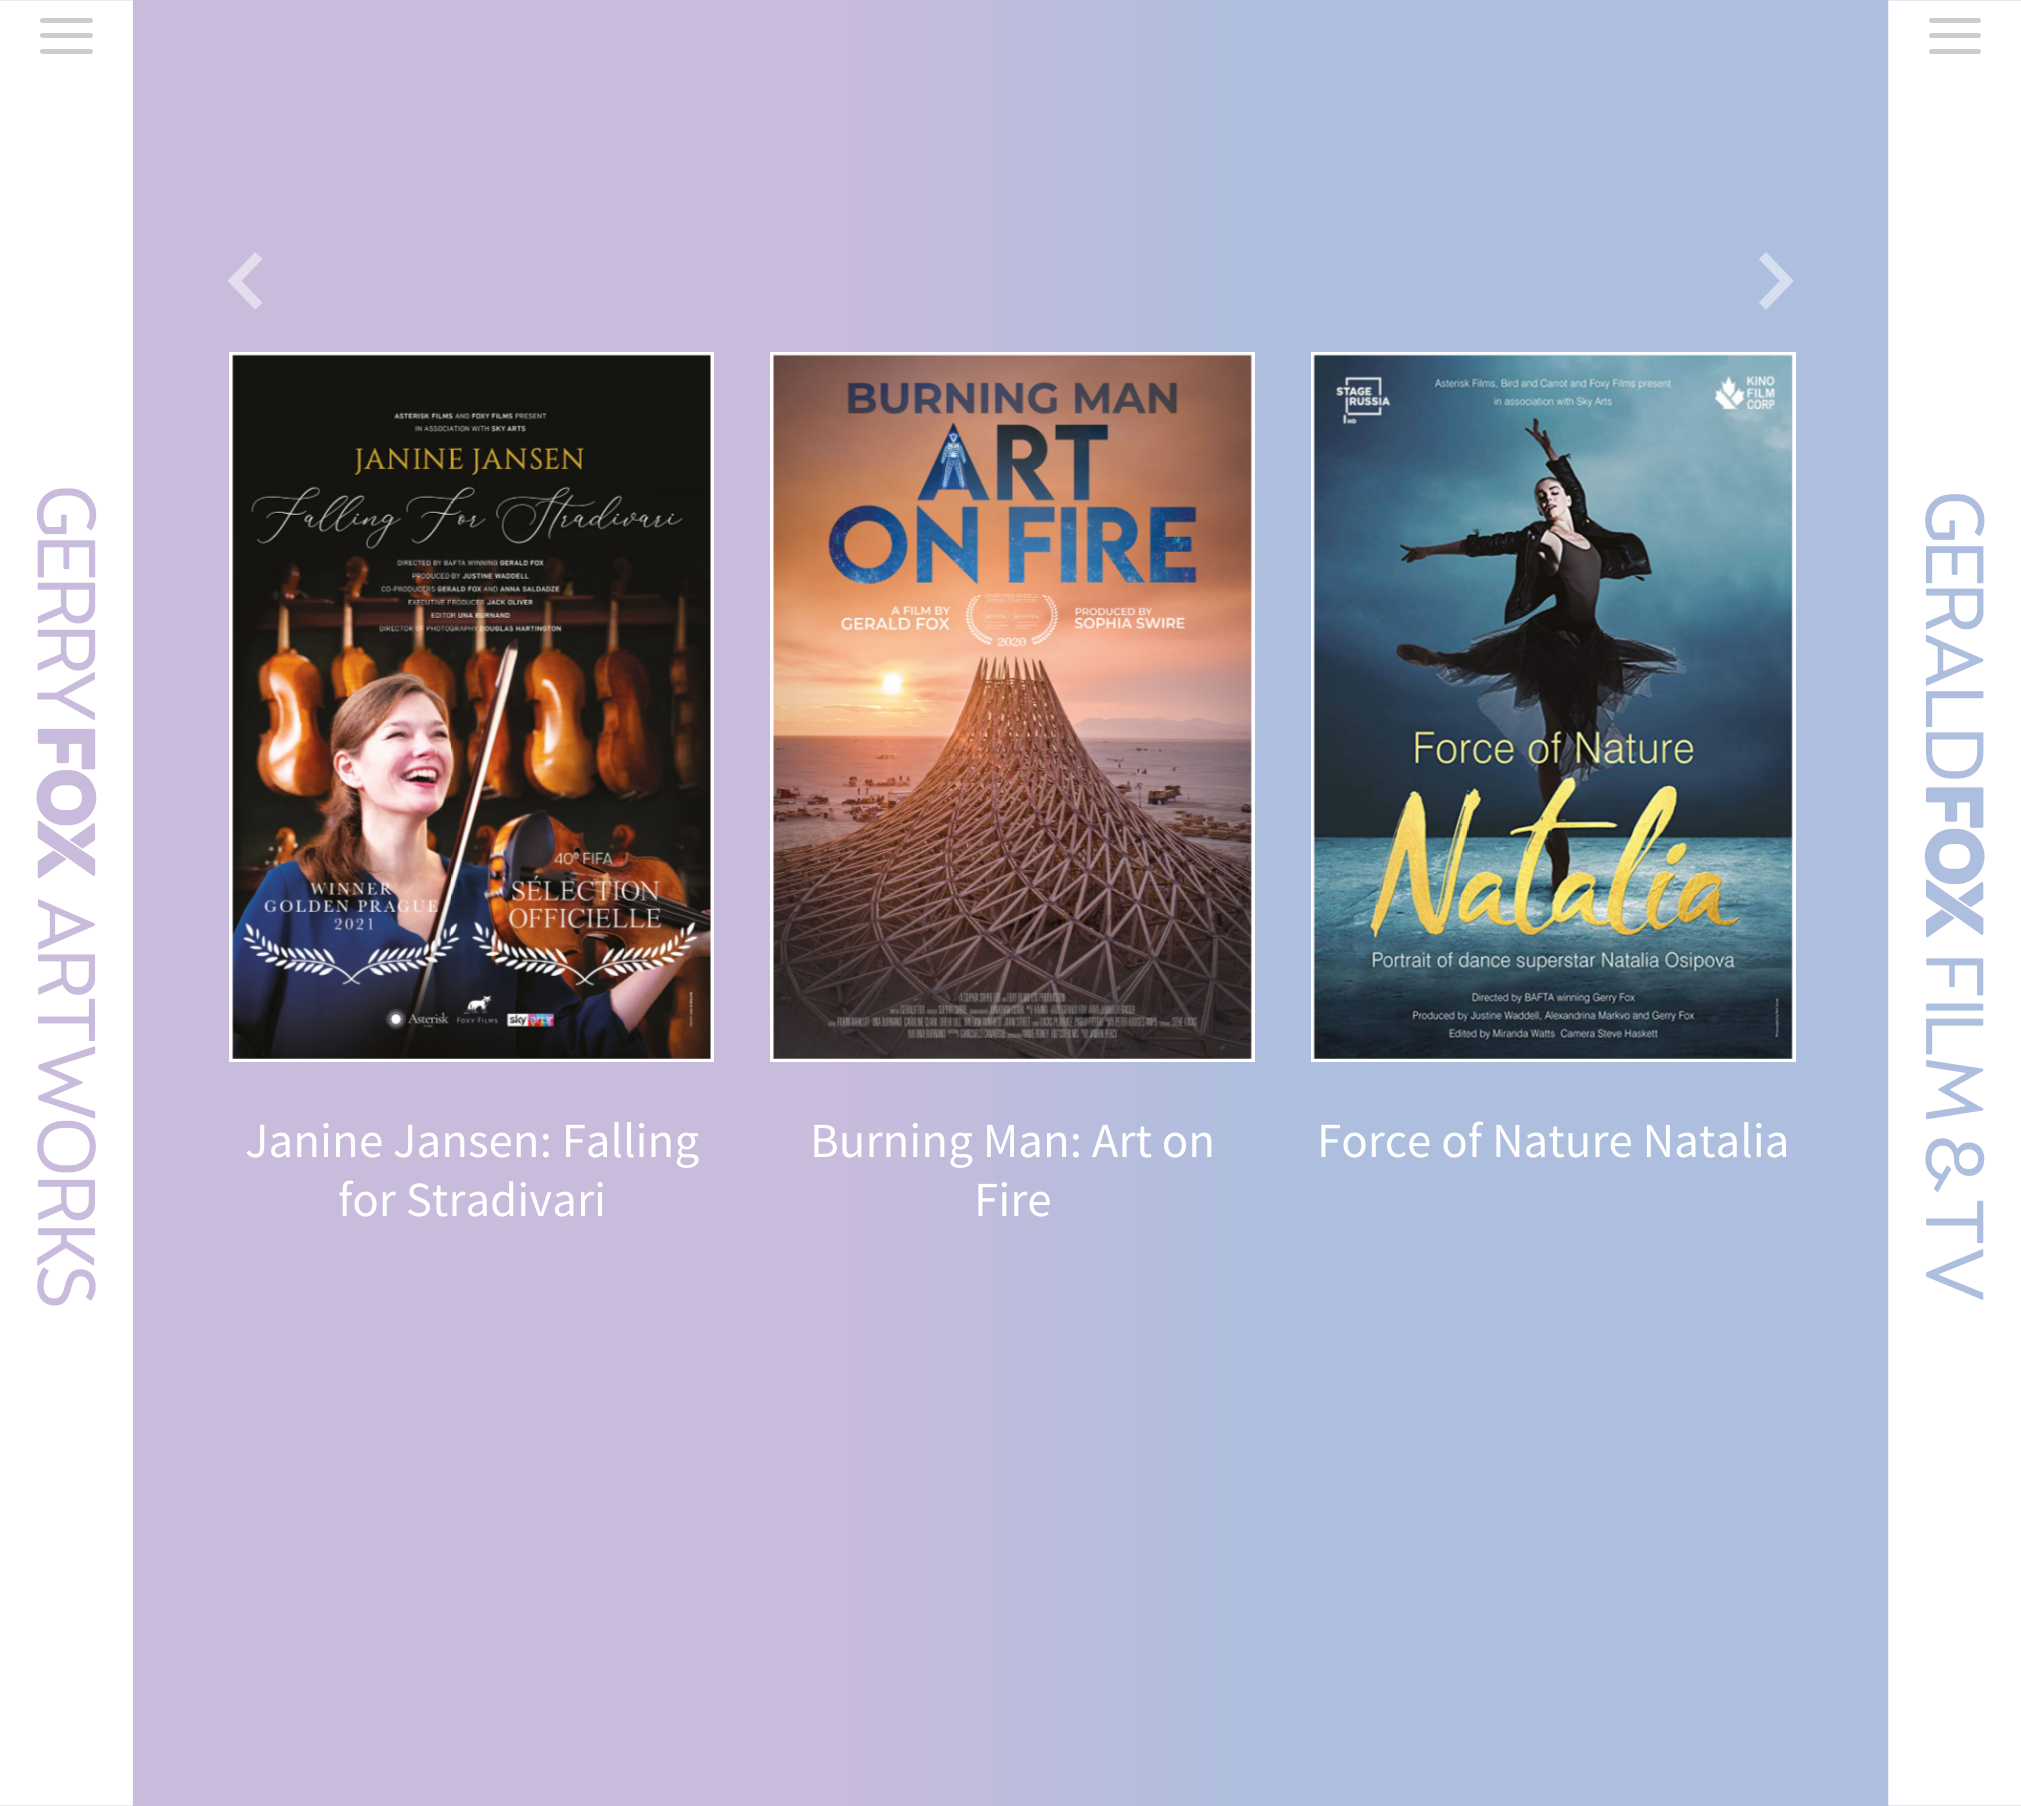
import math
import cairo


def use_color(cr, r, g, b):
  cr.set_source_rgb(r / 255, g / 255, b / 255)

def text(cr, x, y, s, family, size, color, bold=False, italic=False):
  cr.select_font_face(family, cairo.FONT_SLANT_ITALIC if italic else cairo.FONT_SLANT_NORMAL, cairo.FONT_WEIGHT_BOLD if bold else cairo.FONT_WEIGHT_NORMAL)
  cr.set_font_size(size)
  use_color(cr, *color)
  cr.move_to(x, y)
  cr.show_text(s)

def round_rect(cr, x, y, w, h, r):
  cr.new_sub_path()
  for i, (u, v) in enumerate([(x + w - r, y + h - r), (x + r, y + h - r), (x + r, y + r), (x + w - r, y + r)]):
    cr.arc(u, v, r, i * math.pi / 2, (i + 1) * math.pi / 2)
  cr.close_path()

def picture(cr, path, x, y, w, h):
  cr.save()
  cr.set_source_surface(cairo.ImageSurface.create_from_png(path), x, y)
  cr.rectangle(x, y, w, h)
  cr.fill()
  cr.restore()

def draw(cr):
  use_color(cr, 255, 255, 255)
  cr.paint()
  gradient = cairo.LinearGradient(0, 791, 2021, 791)
  gradient.add_color_stop_rgba(0.41, 0.788, 0.733, 0.859, 1)
  gradient.add_color_stop_rgba(0.63, 0.678, 0.745, 0.871, 1)
  cr.set_source(gradient)
  cr.rectangle(0, 0, 2021, 1806)
  cr.fill()
  picture(cr, "img_01.png", 0, 0, 133, 1806)
  use_color(cr, 204, 204, 204)
  round_rect(cr, 40, 18, 53, 5, 2.5)
  cr.fill()
  round_rect(cr, 40, 33, 53, 5, 2.5)
  cr.fill()
  round_rect(cr, 40, 49, 53, 5, 2.5)
  cr.fill()
  picture(cr, "img_02.png", 227, 252, 36, 58)
  picture(cr, "img_03.png", 1758, 252, 36, 58)
  cr.rectangle(231, 354, 481, 706)
  use_color(cr, 255, 255, 255)
  cr.set_line_width(4)
  cr.stroke()
  picture(cr, "img_04.png", 232, 354, 479, 705)
  cr.rectangle(772, 354, 481, 706)
  cr.stroke()
  picture(cr, "img_05.png", 773, 354, 479, 705)
  cr.rectangle(1313, 354, 481, 706)
  cr.stroke()
  picture(cr, "img_06.png", 1313, 354, 480, 705)
  picture(cr, "img_07.png", 1888, 0, 133, 1806)
  use_color(cr, 204, 204, 204)
  round_rect(cr, 1929, 18, 52, 5, 2.5)
  cr.fill()
  round_rect(cr, 1929, 33, 52, 5, 2.5)
  cr.fill()
  round_rect(cr, 1929, 49, 52, 5, 2.5)
  cr.fill()
  text(cr, 245, 1157, "Janine Jansen: Falling", "Source Sans Pro", 49, (255, 255, 255))
  text(cr, 338, 1216, "for Stradivari", "Source Sans Pro", 49, (255, 255, 255))
  text(cr, 810, 1157, "Burning Man: Art on", "Source Sans Pro", 49, (255, 255, 255))
  text(cr, 974, 1216, "Fire", "Source Sans Pro", 49, (255, 255, 255))
  text(cr, 1317, 1157, "Force of Nature Natalia", "Source Sans Pro", 49, (255, 255, 255))


surface = cairo.ImageSurface(cairo.FORMAT_RGB24, 2021, 1806)
cr = cairo.Context(surface)
options = cairo.FontOptions()
options.set_hint_metrics(cairo.HINT_METRICS_OFF)
options.set_hint_style(cairo.HINT_STYLE_NONE)
cr.set_font_options(options)
cr.set_miter_limit(4)
draw(cr)
surface.write_to_png("out.png")
